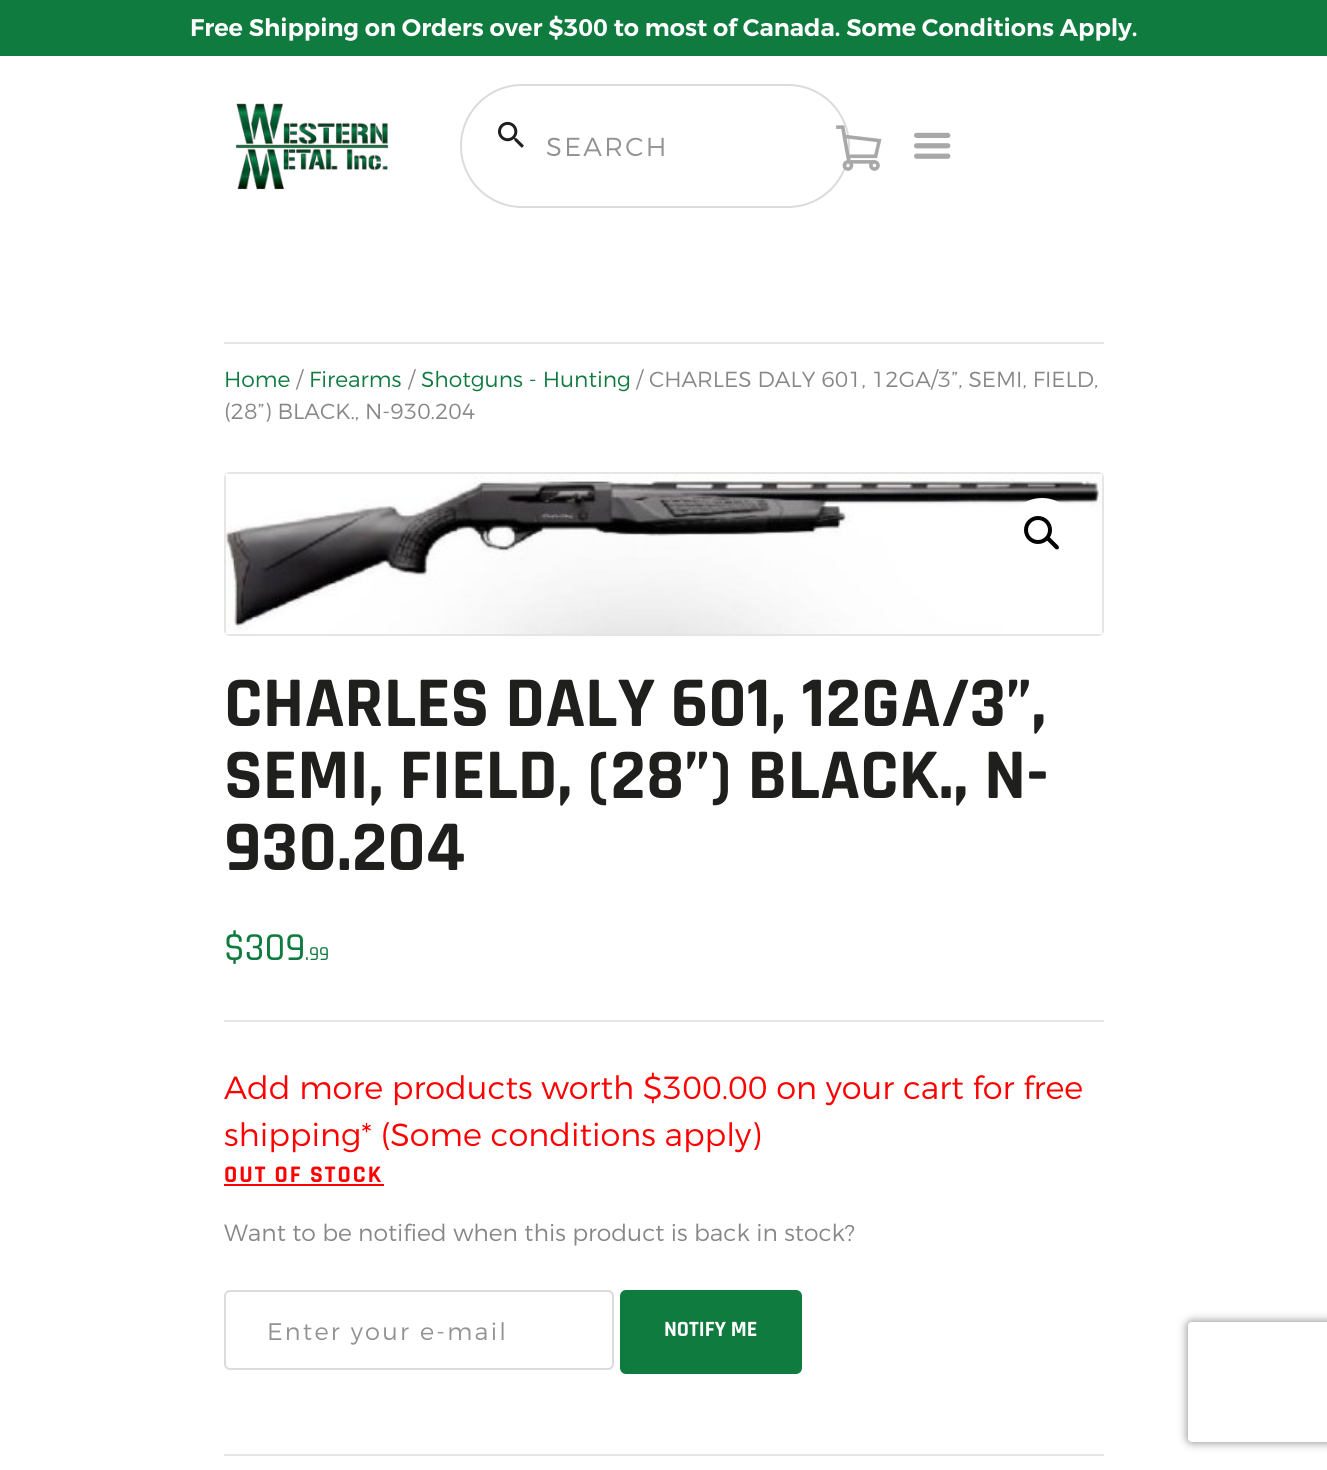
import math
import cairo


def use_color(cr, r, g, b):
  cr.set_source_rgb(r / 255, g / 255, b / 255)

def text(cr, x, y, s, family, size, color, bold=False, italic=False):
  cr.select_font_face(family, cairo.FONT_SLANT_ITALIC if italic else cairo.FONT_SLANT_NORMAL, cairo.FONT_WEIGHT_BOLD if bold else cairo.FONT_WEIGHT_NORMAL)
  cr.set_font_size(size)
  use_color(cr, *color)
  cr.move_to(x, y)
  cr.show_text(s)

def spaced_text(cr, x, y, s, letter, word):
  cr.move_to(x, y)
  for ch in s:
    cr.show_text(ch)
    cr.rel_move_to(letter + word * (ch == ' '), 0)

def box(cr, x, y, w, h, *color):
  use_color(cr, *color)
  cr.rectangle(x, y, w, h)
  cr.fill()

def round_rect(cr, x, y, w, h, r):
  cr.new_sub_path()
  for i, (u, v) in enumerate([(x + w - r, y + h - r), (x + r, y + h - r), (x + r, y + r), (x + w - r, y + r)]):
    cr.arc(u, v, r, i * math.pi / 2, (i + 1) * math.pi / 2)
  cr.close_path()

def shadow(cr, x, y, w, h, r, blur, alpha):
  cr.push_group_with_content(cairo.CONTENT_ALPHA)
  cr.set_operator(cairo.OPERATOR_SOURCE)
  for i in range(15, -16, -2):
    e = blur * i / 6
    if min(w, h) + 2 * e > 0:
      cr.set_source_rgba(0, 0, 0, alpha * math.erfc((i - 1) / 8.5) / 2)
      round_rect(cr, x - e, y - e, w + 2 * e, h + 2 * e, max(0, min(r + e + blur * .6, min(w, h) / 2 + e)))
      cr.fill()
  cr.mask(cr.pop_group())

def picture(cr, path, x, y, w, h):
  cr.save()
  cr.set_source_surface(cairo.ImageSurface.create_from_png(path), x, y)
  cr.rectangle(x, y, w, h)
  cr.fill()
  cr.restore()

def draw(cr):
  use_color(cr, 255, 255, 255)
  cr.paint()
  box(cr, 0, 0, 1327, 56, 15, 123, 63)
  picture(cr, "img_01.png", 236, 103, 152, 87)
  round_rect(cr, 461, 85, 388, 122, 61)
  use_color(cr, 219, 219, 219)
  cr.stroke()
  picture(cr, "img_02.png", 498, 121, 26, 27)
  picture(cr, "img_03.png", 836, 125, 46, 46)
  picture(cr, "img_04.png", 914, 132, 37, 27)
  box(cr, 224, 342, 880, 2, 229, 229, 229)
  round_rect(cr, 225, 473, 878, 162, 5)
  cr.stroke()
  picture(cr, "img_05.png", 226, 474, 876, 160)
  use_color(cr, 255, 255, 255)
  cr.arc(1042, 534, 36, 0, 2 * math.pi)
  cr.fill()
  cr.arc(1038, 530, 12, 0, 2 * math.pi)
  use_color(cr, 0, 0, 0)
  cr.set_line_width(4)
  cr.stroke()
  cr.new_path()
  cr.move_to(1047, 537.5)
  cr.curve_to(1047.5, 536.5, 1049, 536.5, 1050, 537.5)
  cr.line_to(1058.5, 546)
  cr.curve_to(1059, 547, 1059, 548, 1058.5, 549)
  cr.curve_to(1057.5, 549.5, 1056, 549.5, 1055.5, 549)
  cr.line_to(1047, 540.5)
  cr.curve_to(1046, 539.5, 1046, 538.5, 1047, 537.5)
  cr.close_path()
  cr.fill()
  box(cr, 224, 1020, 880, 2, 229, 229, 229)
  box(cr, 224, 1184, 160, 2, 255, 0, 0)
  round_rect(cr, 225, 1291, 388, 78, 5)
  use_color(cr, 219, 219, 219)
  cr.set_line_width(2)
  cr.stroke()
  use_color(cr, 15, 123, 63)
  round_rect(cr, 620, 1290, 182, 84, 6)
  cr.fill()
  box(cr, 224, 1454, 880, 2, 229, 229, 229)
  cr.save()
  cr.set_fill_rule(cairo.FILL_RULE_EVEN_ODD)
  cr.new_path()
  cr.move_to(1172, 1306)
  cr.line_to(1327, 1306)
  cr.line_to(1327, 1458)
  cr.line_to(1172, 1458)
  cr.close_path()
  cr.move_to(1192, 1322)
  cr.line_to(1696, 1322)
  cr.curve_to(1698, 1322, 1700, 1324, 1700, 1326)
  cr.line_to(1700, 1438)
  cr.curve_to(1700, 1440, 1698, 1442, 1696, 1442)
  cr.line_to(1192, 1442)
  cr.curve_to(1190, 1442, 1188, 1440, 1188, 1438)
  cr.line_to(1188, 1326)
  cr.curve_to(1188, 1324, 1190, 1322, 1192, 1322)
  cr.close_path()
  cr.clip()
  use_color(cr, 128, 128, 128)
  shadow(cr, 1188, 1322, 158, 120, 4, 5, 1)
  cr.restore()
  text(cr, 190, 36, "Free Shipping on Orders over $300 to most of Canada. Some Conditions Apply.", "Montserrat SemiBold", 24, (255, 255, 255))
  cr.select_font_face("Montserrat Light")
  cr.set_font_size(26)
  use_color(cr, 146, 146, 146)
  spaced_text(cr, 546, 156, "SEARCH", 2.25, 0)
  text(cr, 224, 387, "Home", "Montserrat Light", 21.8, (15, 123, 63))
  text(cr, 296, 387, "/", "Montserrat Light", 21.8, (135, 135, 134))
  text(cr, 309, 387, "Firearms", "Montserrat Light", 21.8, (15, 123, 63))
  text(cr, 408, 387, "/", "Montserrat Light", 21.8, (135, 135, 134))
  text(cr, 421, 387, "Shotguns - Hunting", "Montserrat Light", 21.8, (15, 123, 63))
  text(cr, 636, 387, "/ CHARLES DALY 601, 12GA/3”, SEMI, FIELD,", "Montserrat Light", 21.8, (135, 135, 134))
  text(cr, 224, 419, "(28”) BLACK., N-930.204", "Montserrat Light", 21.8, (135, 135, 134))
  text(cr, 224, 726, "CHARLES DALY 601, 12GA/3”,", "Rajdhani", 72, (31, 31, 29), bold=True)
  text(cr, 224, 798, "SEMI, FIELD, (28”) BLACK., N-", "Rajdhani", 72, (31, 31, 29), bold=True)
  text(cr, 224, 870, "930.204", "Rajdhani", 72, (31, 31, 29), bold=True)
  text(cr, 224, 960, "$309", "Rajdhani Medium", 40, (15, 123, 63))
  text(cr, 305, 960, ".99", "Rajdhani Medium", 20, (15, 123, 63))
  text(cr, 224, 1099, "Add more products worth $300.00 on your cart for free", "Montserrat Light", 32, (255, 0, 0))
  text(cr, 224, 1146, "shipping* (Some conditions apply)", "Montserrat Light", 32, (255, 0, 0))
  cr.select_font_face("Rajdhani", cairo.FONT_SLANT_NORMAL, cairo.FONT_WEIGHT_BOLD)
  cr.set_font_size(24)
  spaced_text(cr, 224, 1182, "OUT OF STOCK", 2, 0)
  text(cr, 224, 1241, "Want to be notified when this product is back in stock?", "Montserrat Light", 23.4, (135, 135, 134))
  cr.set_font_size(24)
  use_color(cr, 146, 146, 146)
  spaced_text(cr, 267, 1340, "Enter your e-mail", 2.25, 0)
  text(cr, 664, 1336, "NOTIFY ME", "Rajdhani", 22, (255, 255, 255), bold=True)


surface = cairo.ImageSurface(cairo.FORMAT_RGB24, 1327, 1470)
cr = cairo.Context(surface)
options = cairo.FontOptions()
options.set_hint_metrics(cairo.HINT_METRICS_OFF)
options.set_hint_style(cairo.HINT_STYLE_NONE)
cr.set_font_options(options)
cr.set_miter_limit(4)
draw(cr)
surface.write_to_png("out.png")
